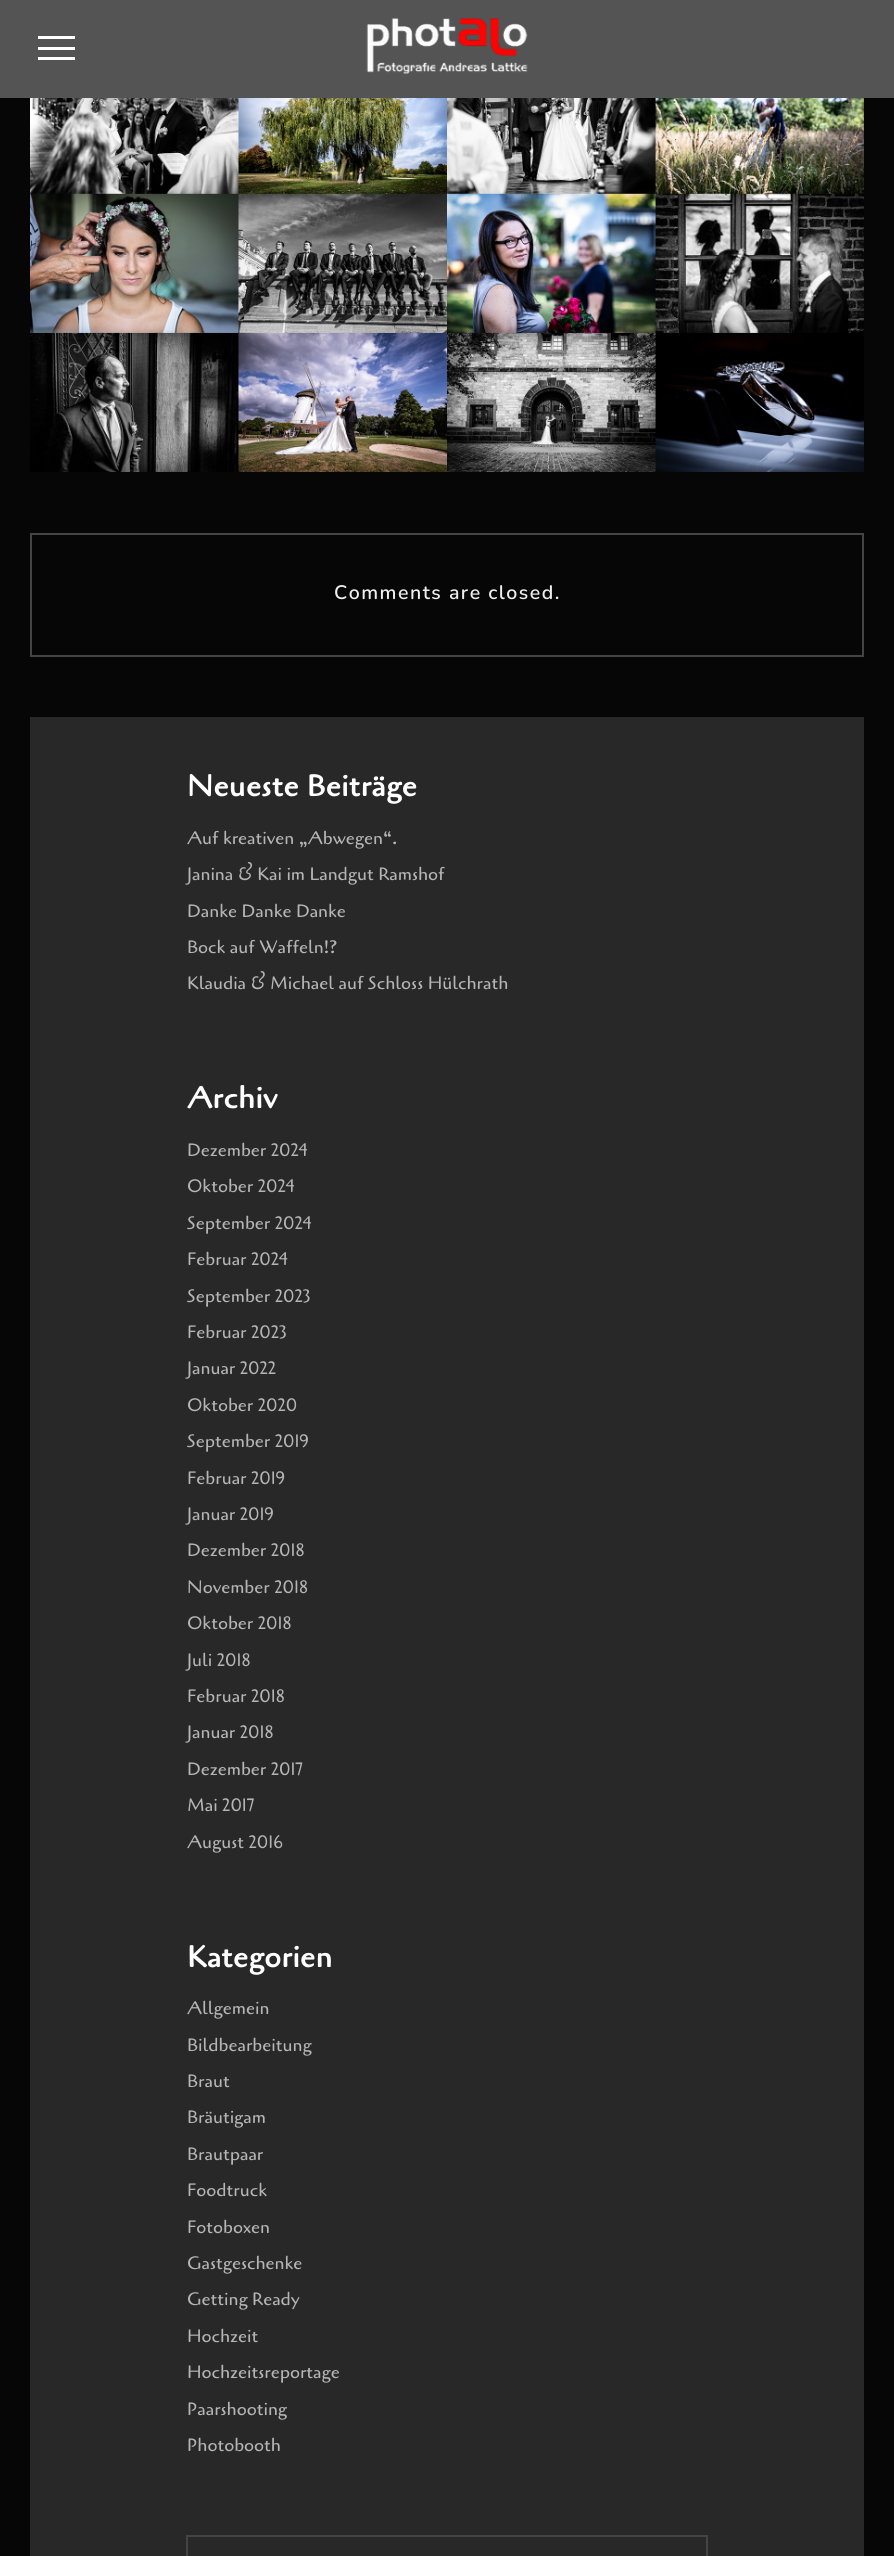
import math
import cairo


def use_color(cr, r, g, b):
  cr.set_source_rgb(r / 255, g / 255, b / 255)

def text(cr, x, y, s, family, size, color, bold=False, italic=False):
  cr.select_font_face(family, cairo.FONT_SLANT_ITALIC if italic else cairo.FONT_SLANT_NORMAL, cairo.FONT_WEIGHT_BOLD if bold else cairo.FONT_WEIGHT_NORMAL)
  cr.set_font_size(size)
  use_color(cr, *color)
  cr.move_to(x, y)
  cr.show_text(s)

def spaced_text(cr, x, y, s, letter, word):
  cr.move_to(x, y)
  for ch in s:
    cr.show_text(ch)
    cr.rel_move_to(letter + word * (ch == ' '), 0)

def box(cr, x, y, w, h, *color):
  use_color(cr, *color)
  cr.rectangle(x, y, w, h)
  cr.fill()

def picture(cr, path, x, y, w, h):
  cr.save()
  cr.set_source_surface(cairo.ImageSurface.create_from_png(path), x, y)
  cr.rectangle(x, y, w, h)
  cr.fill()
  cr.restore()

def draw(cr):
  use_color(cr, 6, 6, 6)
  cr.paint()
  box(cr, 0, 0, 894, 98, 84, 84, 84)
  picture(cr, "img_01.png", 366, 18, 162, 56)
  box(cr, 38, 47, 37, 3, 255, 255, 255)
  box(cr, 38, 36, 37, 3, 255, 255, 255)
  box(cr, 38, 57, 37, 3, 255, 255, 255)
  picture(cr, "img_02.png", 30, 98, 834, 374)
  cr.rectangle(31, 534, 832, 122)
  use_color(cr, 68, 68, 68)
  cr.stroke()
  box(cr, 30, 717, 834, 1839, 40, 40, 40)
  cr.rectangle(187, 2536, 520, 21)
  use_color(cr, 68, 68, 68)
  cr.stroke()
  cr.select_font_face("Nunito SemiBold")
  cr.set_font_size(19.5)
  use_color(cr, 238, 238, 238)
  spaced_text(cr, 334, 599, "Comments are closed.", 1.5, 0)
  cr.select_font_face("Cagliostro", cairo.FONT_SLANT_NORMAL, cairo.FONT_WEIGHT_BOLD)
  cr.set_font_size(30)
  use_color(cr, 255, 255, 255)
  spaced_text(cr, 187, 796, "Neueste Beiträge", 0.4, 0)
  text(cr, 187, 844, "Auf kreativen „Abwegen“.", "Cagliostro", 18, (181, 181, 181))
  text(cr, 187, 880, "Janina & Kai im Landgut Ramshof", "Cagliostro", 18, (181, 181, 181))
  text(cr, 187, 917, "Danke Danke Danke", "Cagliostro", 18, (181, 181, 181))
  text(cr, 187, 953, "Bock auf Waffeln!?", "Cagliostro", 18, (181, 181, 181))
  text(cr, 187, 989, "Klaudia & Michael auf Schloss Hülchrath", "Cagliostro", 18, (181, 181, 181))
  cr.select_font_face("Cagliostro", cairo.FONT_SLANT_NORMAL, cairo.FONT_WEIGHT_BOLD)
  cr.set_font_size(30)
  use_color(cr, 255, 255, 255)
  spaced_text(cr, 187, 1108, "Archiv", 0.4, 0)
  text(cr, 187, 1156, "Dezember 2024", "Cagliostro", 18, (181, 181, 181))
  text(cr, 187, 1192, "Oktober 2024", "Cagliostro", 18, (181, 181, 181))
  text(cr, 187, 1229, "September 2024", "Cagliostro", 18, (181, 181, 181))
  text(cr, 187, 1265, "Februar 2024", "Cagliostro", 18, (181, 181, 181))
  text(cr, 187, 1302, "September 2023", "Cagliostro", 18, (181, 181, 181))
  text(cr, 187, 1338, "Februar 2023", "Cagliostro", 18, (181, 181, 181))
  text(cr, 187, 1374, "Januar 2022", "Cagliostro", 18, (181, 181, 181))
  text(cr, 187, 1411, "Oktober 2020", "Cagliostro", 18, (181, 181, 181))
  text(cr, 187, 1447, "September 2019", "Cagliostro", 18, (181, 181, 181))
  text(cr, 187, 1484, "Februar 2019", "Cagliostro", 18, (181, 181, 181))
  text(cr, 187, 1520, "Januar 2019", "Cagliostro", 18, (181, 181, 181))
  text(cr, 187, 1556, "Dezember 2018", "Cagliostro", 18, (181, 181, 181))
  text(cr, 187, 1593, "November 2018", "Cagliostro", 18, (181, 181, 181))
  text(cr, 187, 1629, "Oktober 2018", "Cagliostro", 18, (181, 181, 181))
  text(cr, 187, 1666, "Juli 2018", "Cagliostro", 18, (181, 181, 181))
  text(cr, 187, 1702, "Februar 2018", "Cagliostro", 18, (181, 181, 181))
  text(cr, 187, 1738, "Januar 2018", "Cagliostro", 18, (181, 181, 181))
  text(cr, 187, 1775, "Dezember 2017", "Cagliostro", 18, (181, 181, 181))
  text(cr, 187, 1811, "Mai 2017", "Cagliostro", 18, (181, 181, 181))
  text(cr, 187, 1848, "August 2016", "Cagliostro", 18, (181, 181, 181))
  cr.select_font_face("Cagliostro", cairo.FONT_SLANT_NORMAL, cairo.FONT_WEIGHT_BOLD)
  cr.set_font_size(30)
  use_color(cr, 255, 255, 255)
  spaced_text(cr, 187, 1967, "Kategorien", 0.4, 0)
  text(cr, 187, 2014, "Allgemein", "Cagliostro", 18, (181, 181, 181))
  text(cr, 187, 2051, "Bildbearbeitung", "Cagliostro", 18, (181, 181, 181))
  text(cr, 187, 2087, "Braut", "Cagliostro", 18, (181, 181, 181))
  text(cr, 187, 2123, "Bräutigam", "Cagliostro", 18, (181, 181, 181))
  text(cr, 187, 2160, "Brautpaar", "Cagliostro", 18, (181, 181, 181))
  text(cr, 187, 2196, "Foodtruck", "Cagliostro", 18, (181, 181, 181))
  text(cr, 187, 2233, "Fotoboxen", "Cagliostro", 18, (181, 181, 181))
  text(cr, 187, 2269, "Gastgeschenke", "Cagliostro", 18, (181, 181, 181))
  text(cr, 187, 2305, "Getting Ready", "Cagliostro", 18, (181, 181, 181))
  text(cr, 187, 2342, "Hochzeit", "Cagliostro", 18, (181, 181, 181))
  text(cr, 187, 2378, "Hochzeitsreportage", "Cagliostro", 18, (181, 181, 181))
  text(cr, 187, 2415, "Paarshooting", "Cagliostro", 18, (181, 181, 181))
  text(cr, 187, 2451, "Photobooth", "Cagliostro", 18, (181, 181, 181))


surface = cairo.ImageSurface(cairo.FORMAT_RGB24, 894, 2556)
cr = cairo.Context(surface)
options = cairo.FontOptions()
options.set_hint_metrics(cairo.HINT_METRICS_OFF)
options.set_hint_style(cairo.HINT_STYLE_NONE)
cr.set_font_options(options)
cr.set_miter_limit(4)
draw(cr)
surface.write_to_png("out.png")
